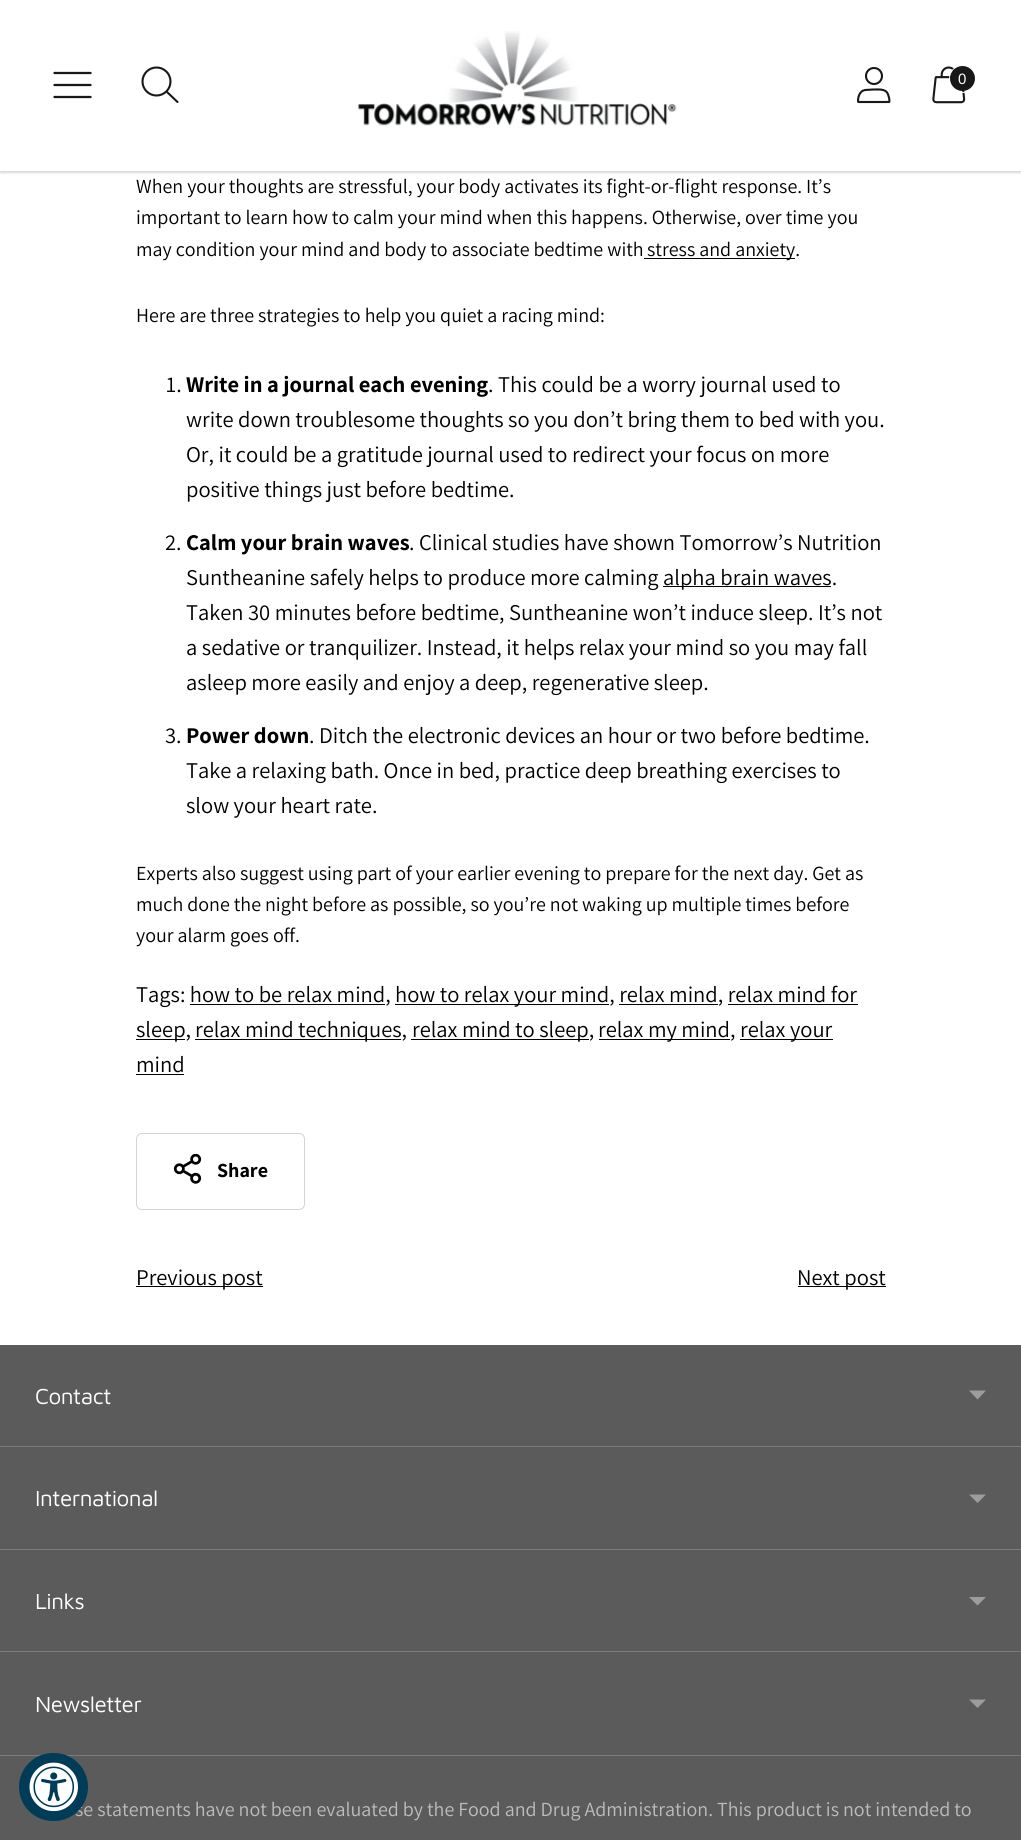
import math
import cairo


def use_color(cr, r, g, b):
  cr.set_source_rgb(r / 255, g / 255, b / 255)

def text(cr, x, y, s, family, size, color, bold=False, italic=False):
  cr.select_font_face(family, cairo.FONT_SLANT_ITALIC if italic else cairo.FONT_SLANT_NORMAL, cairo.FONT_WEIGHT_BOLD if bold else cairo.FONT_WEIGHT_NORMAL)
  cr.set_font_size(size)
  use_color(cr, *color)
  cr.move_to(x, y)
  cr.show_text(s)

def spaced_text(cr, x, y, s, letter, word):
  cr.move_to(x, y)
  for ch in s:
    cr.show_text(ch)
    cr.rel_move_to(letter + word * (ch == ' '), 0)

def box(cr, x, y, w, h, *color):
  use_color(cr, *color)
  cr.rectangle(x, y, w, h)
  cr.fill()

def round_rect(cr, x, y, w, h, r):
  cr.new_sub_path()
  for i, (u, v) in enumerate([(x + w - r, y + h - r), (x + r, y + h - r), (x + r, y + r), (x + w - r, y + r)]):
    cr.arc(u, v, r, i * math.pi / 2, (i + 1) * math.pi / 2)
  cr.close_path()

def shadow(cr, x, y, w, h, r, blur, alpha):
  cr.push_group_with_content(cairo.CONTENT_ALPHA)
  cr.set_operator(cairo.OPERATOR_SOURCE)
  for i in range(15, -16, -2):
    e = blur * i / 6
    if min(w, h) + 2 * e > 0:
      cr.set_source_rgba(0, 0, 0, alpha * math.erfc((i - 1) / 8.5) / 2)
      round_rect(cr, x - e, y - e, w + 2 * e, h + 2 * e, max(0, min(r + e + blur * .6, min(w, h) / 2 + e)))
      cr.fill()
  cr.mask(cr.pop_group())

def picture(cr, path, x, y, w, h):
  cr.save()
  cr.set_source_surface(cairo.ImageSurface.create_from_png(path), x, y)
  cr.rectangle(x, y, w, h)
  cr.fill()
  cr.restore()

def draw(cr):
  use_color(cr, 255, 255, 255)
  cr.paint()
  use_color(cr, 0, 0, 0)
  shadow(cr, 0, 1, 1021, 172, 0, 1, 0.15)
  box(cr, 0, 0, 1021, 171, 255, 255, 255)
  cr.new_path()
  cr.move_to(54.5, 85)
  cr.line_to(90.5, 85)
  cr.move_to(54.5, 73)
  cr.line_to(90.5, 73)
  cr.move_to(54.5, 97)
  cr.line_to(90.5, 97)
  use_color(cr, 24, 24, 24)
  cr.set_line_width(2.3)
  cr.set_line_cap(cairo.LINE_CAP_ROUND)
  cr.set_line_join(cairo.LINE_JOIN_ROUND)
  cr.stroke()
  cr.arc(156.5, 81.5, 14, 0, 2 * math.pi)
  cr.set_line_width(2.1)
  cr.set_line_cap(cairo.LINE_CAP_BUTT)
  cr.set_line_join(cairo.LINE_JOIN_MITER)
  cr.stroke()
  cr.new_path()
  cr.move_to(167, 92)
  cr.line_to(177.5, 102)
  cr.set_line_cap(cairo.LINE_CAP_ROUND)
  cr.set_line_join(cairo.LINE_JOIN_ROUND)
  cr.stroke()
  picture(cr, "img_01.png", 358, 31, 319, 95)
  cr.arc(874, 76, 8, 0, 2 * math.pi)
  cr.set_line_cap(cairo.LINE_CAP_BUTT)
  cr.set_line_join(cairo.LINE_JOIN_MITER)
  cr.stroke()
  cr.new_path()
  cr.move_to(889, 102)
  cr.curve_to(890, 102, 889, 97, 888.5, 96)
  cr.curve_to(887, 88.5, 880, 89.5, 873.5, 89.5)
  cr.line_to(865, 90)
  cr.curve_to(859.5, 91, 858, 97, 858, 101.5)
  cr.line_to(858.5, 102)
  cr.close_path()
  cr.set_line_cap(cairo.LINE_CAP_ROUND)
  cr.set_line_join(cairo.LINE_JOIN_ROUND)
  cr.stroke()
  picture(cr, "img_02.png", 932, 66, 34, 38)
  round_rect(cr, 949.5, 65.5, 26, 27, 13)
  use_color(cr, 255, 255, 255)
  cr.set_line_width(1)
  cr.set_line_cap(cairo.LINE_CAP_BUTT)
  cr.set_line_join(cairo.LINE_JOIN_MITER)
  cr.stroke()
  use_color(cr, 24, 24, 24)
  cr.arc(962.5, 78.5, 12.5, 0, 2 * math.pi)
  cr.fill()
  box(cr, 644, 258, 151, 1, 0, 0, 0)
  box(cr, 663, 586, 168, 1, 0, 0, 0)
  box(cr, 395, 1004, 214, 1, 0, 0, 0)
  box(cr, 190, 1004, 195, 1, 0, 0, 0)
  box(cr, 619, 1004, 99, 1, 0, 0, 0)
  box(cr, 728, 1004, 130, 1, 0, 0, 0)
  box(cr, 136, 1039, 49, 1, 0, 0, 0)
  box(cr, 195, 1039, 206, 1, 0, 0, 0)
  box(cr, 411, 1039, 178, 1, 0, 0, 0)
  box(cr, 599, 1039, 131, 1, 0, 0, 0)
  box(cr, 740, 1039, 93, 1, 0, 0, 0)
  box(cr, 136, 1074, 48, 1, 0, 0, 0)
  round_rect(cr, 136.5, 1133.5, 168, 76, 5.5)
  use_color(cr, 212, 212, 212)
  cr.stroke()
  picture(cr, "img_03.png", 173, 1154, 29, 30)
  box(cr, 136, 1286, 127, 1, 0, 0, 0)
  box(cr, 798, 1286, 88, 1, 0, 0, 0)
  box(cr, 0, 1345, 1021, 495, 91, 91, 91)
  box(cr, 0, 1446, 1021, 1, 124, 124, 124)
  use_color(cr, 157, 157, 157)
  cr.new_path()
  cr.move_to(969, 1390.5)
  cr.line_to(977.5, 1399.5)
  cr.line_to(986, 1390.5)
  cr.close_path()
  cr.fill()
  box(cr, 0, 1549, 1021, 1, 124, 124, 124)
  use_color(cr, 157, 157, 157)
  cr.new_path()
  cr.move_to(969, 1494.5)
  cr.line_to(977.5, 1503)
  cr.line_to(986, 1494.5)
  cr.close_path()
  cr.fill()
  box(cr, 0, 1651, 1021, 1, 124, 124, 124)
  use_color(cr, 157, 157, 157)
  cr.new_path()
  cr.move_to(969, 1597)
  cr.line_to(977.5, 1605.5)
  cr.line_to(986, 1597)
  cr.close_path()
  cr.fill()
  box(cr, 0, 1755, 1021, 1, 124, 124, 124)
  use_color(cr, 157, 157, 157)
  cr.new_path()
  cr.move_to(969, 1699.5)
  cr.line_to(977.5, 1708)
  cr.line_to(986, 1699.5)
  cr.close_path()
  cr.fill()
  text(cr, 958, 84, "0", "Liberation Sans", 15, (255, 255, 255))
  text(cr, 136, 193, "When your thoughts are stressful, your body activates its fight-or-flight response. It’s", "Assistant", 20, (0, 0, 0))
  text(cr, 136, 224, "important to learn how to calm your mind when this happens. Otherwise, over time you", "Assistant", 20, (0, 0, 0))
  text(cr, 136, 256, "may condition your mind and body to associate bedtime with", "Assistant", 20, (0, 0, 0))
  text(cr, 647, 256, "stress and anxiety.", "Assistant", 20, (0, 0, 0))
  text(cr, 136, 322, "Here are three strategies to help you quiet a racing mind:", "Assistant", 20, (0, 0, 0))
  text(cr, 166, 392, "1.", "Assistant", 22.5, (0, 0, 0))
  text(cr, 186, 392, "Write in a journal each evening", "Assistant", 22.5, (0, 0, 0), bold=True)
  text(cr, 488, 392, ". This could be a worry journal used to", "Assistant", 22.5, (0, 0, 0))
  text(cr, 186, 427, "write down troublesome thoughts so you don’t bring them to bed with you.", "Assistant", 22.5, (0, 0, 0))
  text(cr, 186, 462, "Or, it could be a gratitude journal used to redirect your focus on more", "Assistant", 22.5, (0, 0, 0))
  text(cr, 186, 497, "positive things just before bedtime.", "Assistant", 22.5, (0, 0, 0))
  text(cr, 165, 550, "2.", "Assistant", 22.5, (0, 0, 0))
  text(cr, 186, 550, "Calm your brain waves", "Assistant", 22.5, (0, 0, 0), bold=True)
  text(cr, 409, 550, ". Clinical studies have shown Tomorrow’s Nutrition", "Assistant", 22.5, (0, 0, 0))
  text(cr, 186, 585, "Suntheanine safely helps to produce more calming", "Assistant", 22.5, (0, 0, 0))
  text(cr, 663, 585, "alpha brain waves.", "Assistant", 22.5, (0, 0, 0))
  text(cr, 186, 620, "Taken 30 minutes before bedtime, Suntheanine won’t induce sleep. It’s not", "Assistant", 22.5, (0, 0, 0))
  text(cr, 186, 655, "a sedative or tranquilizer. Instead, it helps relax your mind so you may fall", "Assistant", 22.5, (0, 0, 0))
  text(cr, 186, 690, "asleep more easily and enjoy a deep, regenerative sleep.", "Assistant", 22.5, (0, 0, 0))
  text(cr, 165, 743, "3.", "Assistant", 22.5, (0, 0, 0))
  text(cr, 186, 743, "Power down", "Assistant", 22.5, (0, 0, 0), bold=True)
  text(cr, 309, 743, ". Ditch the electronic devices an hour or two before bedtime.", "Assistant", 22.5, (0, 0, 0))
  text(cr, 186, 778, "Take a relaxing bath. Once in bed, practice deep breathing exercises to", "Assistant", 22.5, (0, 0, 0))
  text(cr, 186, 813, "slow your heart rate.", "Assistant", 22.5, (0, 0, 0))
  text(cr, 136, 880, "Experts also suggest using part of your earlier evening to prepare for the next day. Get as", "Assistant", 20, (0, 0, 0))
  text(cr, 136, 911, "much done the night before as possible, so you’re not waking up multiple times before", "Assistant", 20, (0, 0, 0))
  text(cr, 136, 942, "your alarm goes off.", "Assistant", 20, (0, 0, 0))
  text(cr, 136, 1002, "Tags: how to be relax mind,", "Assistant", 22.5, (0, 0, 0))
  text(cr, 395, 1002, "how to relax your mind, relax mind, relax mind for", "Assistant", 22.5, (0, 0, 0))
  text(cr, 136, 1037, "sleep,", "Assistant", 22.5, (0, 0, 0))
  text(cr, 195, 1037, "relax mind techniques,", "Assistant", 22.5, (0, 0, 0))
  text(cr, 412, 1037, "relax mind to sleep,", "Assistant", 22.5, (0, 0, 0))
  text(cr, 598, 1037, "relax my mind,", "Assistant", 22.5, (0, 0, 0))
  text(cr, 740, 1037, "relax your", "Assistant", 22.5, (0, 0, 0))
  text(cr, 136, 1072, "mind", "Assistant", 22.5, (0, 0, 0))
  text(cr, 217, 1177, "Share", "Assistant", 20, (0, 0, 0), bold=True)
  text(cr, 136, 1285, "Previous post", "Assistant", 22.5, (0, 0, 0))
  text(cr, 797, 1285, "Next post", "Assistant", 22.5, (0, 0, 0))
  cr.select_font_face("Maven Pro")
  use_color(cr, 255, 255, 255)
  spaced_text(cr, 35, 1404, "Contact", -0.5, 0)
  spaced_text(cr, 35, 1506, "International", -0.5, 0)
  spaced_text(cr, 35, 1609, "Links", -0.5, 0)
  spaced_text(cr, 35, 1712, "Newsletter", -0.5, 0)
  text(cr, 75, 1816, "se statements have not been evaluated by the Food and Drug Administration. This product is not intended to", "Assistant", 20, (189, 189, 189))
  use_color(cr, 0, 59, 87)
  round_rect(cr, 19, 1753, 69, 68, 34)
  cr.fill()
  picture(cr, "img_04.png", 29, 1762, 49, 50)


surface = cairo.ImageSurface(cairo.FORMAT_RGB24, 1021, 1840)
cr = cairo.Context(surface)
options = cairo.FontOptions()
options.set_hint_metrics(cairo.HINT_METRICS_OFF)
options.set_hint_style(cairo.HINT_STYLE_NONE)
cr.set_font_options(options)
cr.set_miter_limit(4)
draw(cr)
surface.write_to_png("out.png")
